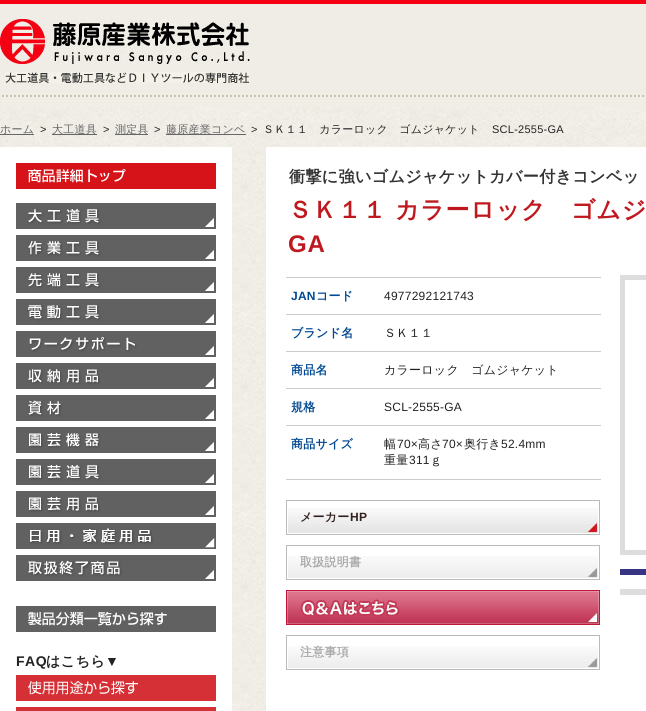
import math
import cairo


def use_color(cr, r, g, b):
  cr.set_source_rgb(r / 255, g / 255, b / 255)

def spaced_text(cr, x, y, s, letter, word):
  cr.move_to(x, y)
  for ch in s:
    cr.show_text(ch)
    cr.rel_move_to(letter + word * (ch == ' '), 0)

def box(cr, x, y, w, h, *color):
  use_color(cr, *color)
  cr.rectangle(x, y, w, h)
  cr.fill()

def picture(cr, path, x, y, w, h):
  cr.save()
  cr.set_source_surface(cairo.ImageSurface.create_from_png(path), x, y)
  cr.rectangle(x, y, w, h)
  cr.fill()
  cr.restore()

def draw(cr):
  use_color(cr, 255, 255, 255)
  cr.paint()
  picture(cr, "img_01.png", 0, 107, 646, 604)
  box(cr, 0, 0, 646, 4, 244, 0, 18)
  box(cr, 0, 4, 646, 103, 240, 237, 230)
  picture(cr, "img_02.png", 2, 95, 642, 12)
  picture(cr, "img_03.png", 0, 19, 250, 45)
  picture(cr, "img_04.png", 5, 72, 244, 11)
  box(cr, 0, 134, 34, 1, 102, 102, 102)
  box(cr, 52, 134, 45, 1, 102, 102, 102)
  box(cr, 115, 134, 33, 1, 102, 102, 102)
  box(cr, 166, 134, 80, 1, 102, 102, 102)
  box(cr, 266, 147, 380, 564, 255, 255, 255)
  box(cr, 286, 277, 315, 1, 204, 204, 204)
  box(cr, 286, 314, 315, 1, 204, 204, 204)
  box(cr, 286, 351, 315, 1, 204, 204, 204)
  box(cr, 286, 388, 315, 1, 204, 204, 204)
  box(cr, 286, 425, 315, 1, 204, 204, 204)
  box(cr, 286, 479, 315, 1, 204, 204, 204)
  cr.rectangle(286.5, 500.5, 313, 34)
  use_color(cr, 187, 187, 187)
  cr.set_line_width(1)
  cr.stroke()
  picture(cr, "img_05.png", 288, 508, 310, 25)
  cr.rectangle(286.5, 545.5, 313, 34)
  cr.stroke()
  picture(cr, "img_06.png", 288, 556, 310, 22)
  picture(cr, "img_07.png", 286, 590, 314, 35)
  cr.rectangle(286.5, 635.5, 313, 34)
  cr.stroke()
  picture(cr, "img_06.png", 288, 646, 310, 22)
  cr.rectangle(622.5, 277.5, 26, 275)
  use_color(cr, 221, 221, 221)
  cr.set_line_width(5)
  cr.stroke()
  box(cr, 620, 569, 26, 6, 54, 52, 131)
  box(cr, 620, 589, 26, 6, 221, 221, 221)
  box(cr, 0, 147, 232, 564, 255, 255, 255)
  picture(cr, "img_08.png", 16, 163, 200, 26)
  picture(cr, "img_09.png", 16, 203, 200, 26)
  picture(cr, "img_10.png", 16, 235, 200, 26)
  picture(cr, "img_11.png", 16, 267, 200, 26)
  picture(cr, "img_12.png", 16, 299, 200, 26)
  picture(cr, "img_13.png", 16, 331, 200, 26)
  picture(cr, "img_14.png", 16, 363, 200, 26)
  picture(cr, "img_15.png", 16, 395, 200, 26)
  picture(cr, "img_16.png", 16, 427, 200, 26)
  picture(cr, "img_17.png", 16, 459, 200, 26)
  picture(cr, "img_18.png", 16, 491, 200, 26)
  picture(cr, "img_19.png", 16, 523, 200, 26)
  picture(cr, "img_20.png", 16, 555, 200, 26)
  picture(cr, "img_21.png", 16, 606, 200, 26)
  picture(cr, "img_22.png", 16, 675, 200, 26)
  box(cr, 16, 707, 200, 4, 212, 48, 54)
  cr.select_font_face("WenQuanYi Zen Hei Medium")
  cr.set_font_size(11)
  use_color(cr, 102, 102, 102)
  spaced_text(cr, 0, 133, "ホーム", 0.25, 0)
  cr.select_font_face("Liberation Sans")
  use_color(cr, 34, 34, 34)
  spaced_text(cr, 40, 133, ">", 0.25, 0)
  cr.select_font_face("WenQuanYi Zen Hei Medium")
  use_color(cr, 102, 102, 102)
  spaced_text(cr, 52, 133, "大工道具", 0.25, 0)
  cr.select_font_face("Liberation Sans")
  use_color(cr, 34, 34, 34)
  spaced_text(cr, 103, 133, ">", 0.25, 0)
  cr.select_font_face("WenQuanYi Zen Hei Medium")
  use_color(cr, 102, 102, 102)
  spaced_text(cr, 115, 133, "測定具", 0.25, 0)
  cr.select_font_face("Liberation Sans")
  use_color(cr, 34, 34, 34)
  spaced_text(cr, 154, 133, ">", 0.25, 0)
  cr.select_font_face("WenQuanYi Zen Hei Medium")
  use_color(cr, 102, 102, 102)
  spaced_text(cr, 166, 133, "藤原産業コンベ", 0.25, 0)
  cr.select_font_face("Liberation Sans")
  use_color(cr, 34, 34, 34)
  spaced_text(cr, 251, 133, ">", 0.25, 0)
  cr.select_font_face("WenQuanYi Zen Hei Medium")
  spaced_text(cr, 263, 133, "ＳＫ１１　カラーロック　ゴムジャケット", 0.25, 0)
  cr.select_font_face("Liberation Sans")
  spaced_text(cr, 492, 133, "SCL-2555-GA", 0.25, 0)
  cr.select_font_face("WenQuanYi Zen Hei", cairo.FONT_SLANT_NORMAL, cairo.FONT_WEIGHT_BOLD)
  cr.set_font_size(16.1)
  use_color(cr, 51, 51, 51)
  spaced_text(cr, 289, 182, "衝撃に強いゴムジャケットカバー付きコンベッ", 0.3, 0)
  cr.set_font_size(24)
  use_color(cr, 191, 25, 31)
  spaced_text(cr, 288, 218, "ＳＫ１１ カラーロック　ゴムジ", 0.75, 0)
  cr.select_font_face("Liberation Sans", cairo.FONT_SLANT_NORMAL, cairo.FONT_WEIGHT_BOLD)
  spaced_text(cr, 288, 252, "GA", 0.75, 0)
  cr.set_font_size(12)
  use_color(cr, 0, 72, 146)
  spaced_text(cr, 291, 300, "JAN", 0.25, 0)
  cr.select_font_face("WenQuanYi Zen Hei", cairo.FONT_SLANT_NORMAL, cairo.FONT_WEIGHT_BOLD)
  spaced_text(cr, 316, 300, "コード", 0.25, 0)
  cr.select_font_face("Liberation Sans")
  use_color(cr, 34, 34, 34)
  spaced_text(cr, 384, 300, "4977292121743", 0.25, 0)
  cr.select_font_face("WenQuanYi Zen Hei", cairo.FONT_SLANT_NORMAL, cairo.FONT_WEIGHT_BOLD)
  use_color(cr, 0, 72, 146)
  spaced_text(cr, 291, 337, "ブランド名", 0.25, 0)
  cr.select_font_face("WenQuanYi Zen Hei Medium")
  use_color(cr, 34, 34, 34)
  spaced_text(cr, 384, 337, "ＳＫ１１", 0.25, 0)
  cr.select_font_face("WenQuanYi Zen Hei", cairo.FONT_SLANT_NORMAL, cairo.FONT_WEIGHT_BOLD)
  use_color(cr, 0, 72, 146)
  spaced_text(cr, 291, 374, "商品名", 0.25, 0)
  cr.select_font_face("WenQuanYi Zen Hei Medium")
  use_color(cr, 34, 34, 34)
  spaced_text(cr, 384, 374, "カラーロック　ゴムジャケット", 0.25, 0)
  cr.select_font_face("WenQuanYi Zen Hei", cairo.FONT_SLANT_NORMAL, cairo.FONT_WEIGHT_BOLD)
  use_color(cr, 0, 72, 146)
  spaced_text(cr, 291, 411, "規格", 0.25, 0)
  cr.select_font_face("Liberation Sans")
  use_color(cr, 34, 34, 34)
  spaced_text(cr, 384, 411, "SCL-2555-GA", 0.25, 0)
  cr.select_font_face("WenQuanYi Zen Hei", cairo.FONT_SLANT_NORMAL, cairo.FONT_WEIGHT_BOLD)
  use_color(cr, 0, 72, 146)
  spaced_text(cr, 291, 448, "商品サイズ", 0.25, 0)
  cr.select_font_face("WenQuanYi Zen Hei Medium")
  use_color(cr, 34, 34, 34)
  spaced_text(cr, 384, 448, "幅", 0.25, 0)
  cr.select_font_face("Liberation Sans")
  spaced_text(cr, 397, 448, "70×", 0.25, 0)
  cr.select_font_face("WenQuanYi Zen Hei Medium")
  spaced_text(cr, 418, 448, "高さ", 0.25, 0)
  cr.select_font_face("Liberation Sans")
  spaced_text(cr, 442, 448, "70×", 0.25, 0)
  cr.select_font_face("WenQuanYi Zen Hei Medium")
  spaced_text(cr, 464, 448, "奥行き", 0.25, 0)
  cr.select_font_face("Liberation Sans")
  spaced_text(cr, 501, 448, "52.4mm", 0.25, 0)
  cr.select_font_face("WenQuanYi Zen Hei Medium")
  spaced_text(cr, 384, 464, "重量", 0.25, 0)
  cr.select_font_face("Liberation Sans")
  spaced_text(cr, 409, 464, "311", 0.25, 0)
  cr.select_font_face("WenQuanYi Zen Hei Medium")
  spaced_text(cr, 430, 464, "ｇ", 0.25, 0)
  cr.select_font_face("WenQuanYi Zen Hei", cairo.FONT_SLANT_NORMAL, cairo.FONT_WEIGHT_BOLD)
  use_color(cr, 50, 34, 31)
  spaced_text(cr, 300, 521, "メーカー", 0.25, 0)
  cr.select_font_face("Liberation Sans", cairo.FONT_SLANT_NORMAL, cairo.FONT_WEIGHT_BOLD)
  spaced_text(cr, 350, 521, "HP", 0.25, 0)
  cr.select_font_face("WenQuanYi Zen Hei", cairo.FONT_SLANT_NORMAL, cairo.FONT_WEIGHT_BOLD)
  use_color(cr, 170, 170, 170)
  spaced_text(cr, 300, 566, "取扱説明書", 0.25, 0)
  spaced_text(cr, 300, 656, "注意事項", 0.25, 0)
  cr.select_font_face("Liberation Sans", cairo.FONT_SLANT_NORMAL, cairo.FONT_WEIGHT_BOLD)
  cr.set_font_size(14)
  use_color(cr, 34, 34, 34)
  spaced_text(cr, 16, 666, "FAQ", 0.5, 0)
  cr.select_font_face("WenQuanYi Zen Hei", cairo.FONT_SLANT_NORMAL, cairo.FONT_WEIGHT_BOLD)
  spaced_text(cr, 46, 666, "はこちら", 0.5, 0)
  cr.select_font_face("Liberation Sans", cairo.FONT_SLANT_NORMAL, cairo.FONT_WEIGHT_BOLD)
  spaced_text(cr, 105, 666, "▼", 0.5, 0)


surface = cairo.ImageSurface(cairo.FORMAT_RGB24, 646, 711)
cr = cairo.Context(surface)
options = cairo.FontOptions()
options.set_hint_metrics(cairo.HINT_METRICS_OFF)
options.set_hint_style(cairo.HINT_STYLE_NONE)
cr.set_font_options(options)
cr.set_miter_limit(4)
draw(cr)
surface.write_to_png("out.png")
